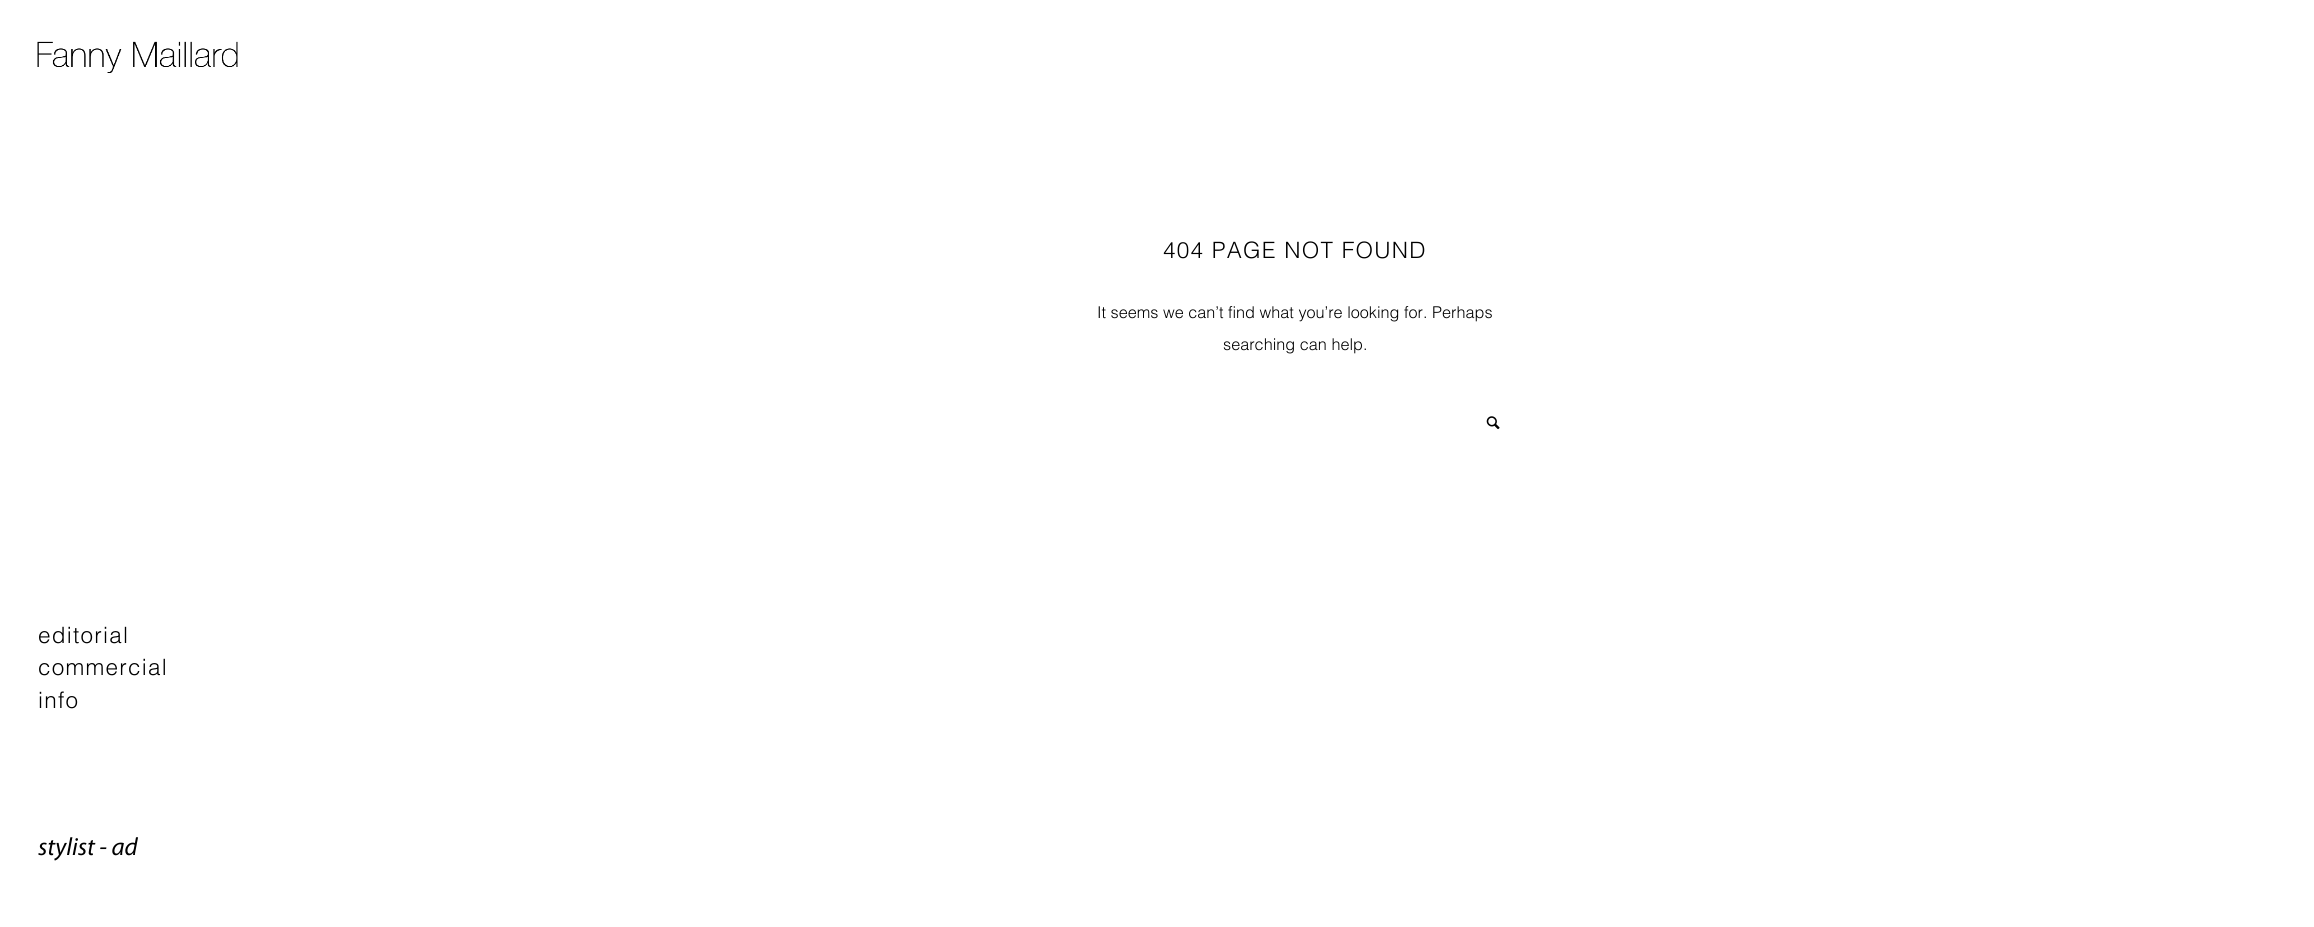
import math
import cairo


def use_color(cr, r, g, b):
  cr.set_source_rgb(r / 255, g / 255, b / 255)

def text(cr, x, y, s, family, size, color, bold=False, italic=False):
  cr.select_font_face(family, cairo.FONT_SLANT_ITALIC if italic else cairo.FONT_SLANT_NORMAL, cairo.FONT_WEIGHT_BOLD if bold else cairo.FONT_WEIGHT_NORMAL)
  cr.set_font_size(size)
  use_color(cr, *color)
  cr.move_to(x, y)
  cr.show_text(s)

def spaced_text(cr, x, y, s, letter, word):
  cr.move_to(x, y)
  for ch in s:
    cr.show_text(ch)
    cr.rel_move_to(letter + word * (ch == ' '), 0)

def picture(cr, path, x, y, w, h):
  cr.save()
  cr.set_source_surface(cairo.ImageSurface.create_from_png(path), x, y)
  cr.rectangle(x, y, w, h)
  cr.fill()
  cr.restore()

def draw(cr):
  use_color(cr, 255, 255, 255)
  cr.paint()
  picture(cr, "img_01.png", 1486, 416, 14, 14)
  picture(cr, "img_02.png", 37, 41, 201, 32)
  cr.select_font_face("Helvetica Light")
  cr.set_font_size(22.5)
  use_color(cr, 0, 0, 0)
  spaced_text(cr, 1163, 258, "404 PAGE NOT FOUND", 1.25, 0)
  text(cr, 1097, 318, "It seems we can’t find what you’re looking for. Perhaps", "Helvetica Light", 16.25, (0, 0, 0))
  text(cr, 1223, 350, "searching can help.", "Helvetica Light", 16.25, (0, 0, 0))
  cr.set_font_size(22.5)
  spaced_text(cr, 38, 643, "editorial", 1.25, 0)
  spaced_text(cr, 38, 675, "commercial", 1.25, 0)
  spaced_text(cr, 38, 708, "info", 1.25, 0)
  text(cr, 38, 855, "stylist - ad", "Myriad", 25, (0, 0, 0), italic=True)


surface = cairo.ImageSurface(cairo.FORMAT_RGB24, 2314, 927)
cr = cairo.Context(surface)
options = cairo.FontOptions()
options.set_hint_metrics(cairo.HINT_METRICS_OFF)
options.set_hint_style(cairo.HINT_STYLE_NONE)
cr.set_font_options(options)
cr.set_miter_limit(4)
draw(cr)
surface.write_to_png("out.png")
